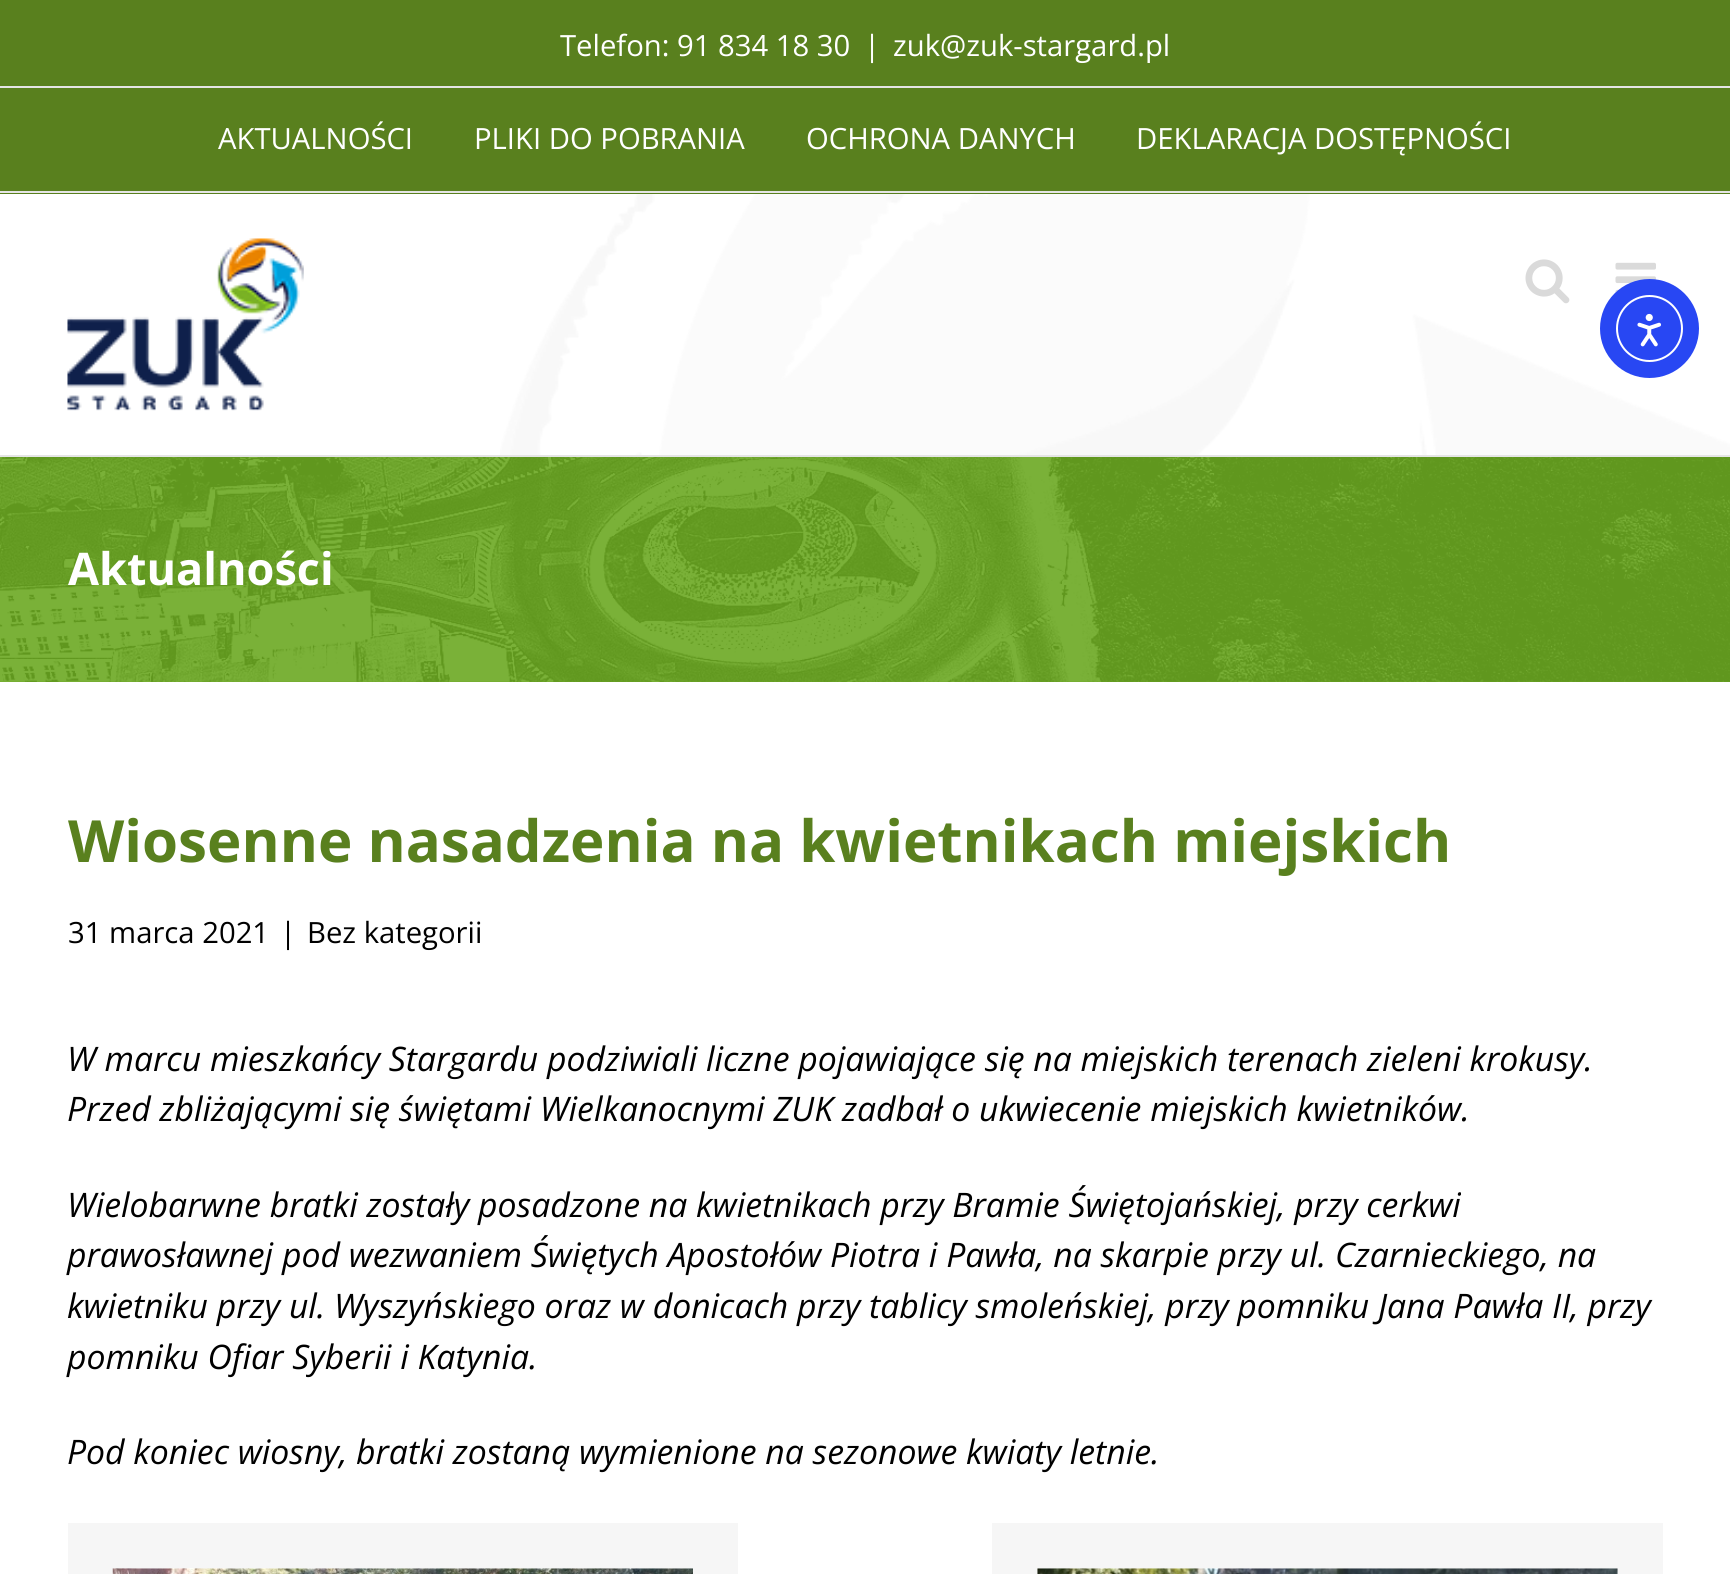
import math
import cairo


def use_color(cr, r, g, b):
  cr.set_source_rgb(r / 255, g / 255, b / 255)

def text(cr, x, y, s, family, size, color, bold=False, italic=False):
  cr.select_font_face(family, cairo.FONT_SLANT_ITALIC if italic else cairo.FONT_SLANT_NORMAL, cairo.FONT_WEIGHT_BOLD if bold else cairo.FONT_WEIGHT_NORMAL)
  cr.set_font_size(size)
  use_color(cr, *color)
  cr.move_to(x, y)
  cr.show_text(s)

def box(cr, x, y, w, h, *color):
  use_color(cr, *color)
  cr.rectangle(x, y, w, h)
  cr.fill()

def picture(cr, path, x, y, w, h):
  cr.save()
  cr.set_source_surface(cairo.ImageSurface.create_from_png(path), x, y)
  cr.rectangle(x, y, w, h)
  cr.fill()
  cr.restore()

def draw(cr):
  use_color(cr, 255, 255, 255)
  cr.paint()
  box(cr, 0, 0, 1730, 194, 89, 128, 30)
  box(cr, 0, 191, 1730, 2, 229, 229, 229)
  box(cr, 0, 86, 1730, 2, 229, 229, 229)
  picture(cr, "img_01.png", 500, 194, 1230, 261)
  box(cr, 0, 455, 1730, 2, 229, 229, 229)
  picture(cr, "img_02.png", 67, 238, 237, 173)
  picture(cr, "img_03.png", 1525, 259, 45, 45)
  picture(cr, "img_04.png", 1615, 262, 41, 31)
  box(cr, 0, 457, 1730, 225, 107, 168, 33)
  picture(cr, "img_05.png", 0, 457, 1730, 225)
  cr.rectangle(90.5, 1545.5, 625, 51)
  use_color(cr, 246, 246, 246)
  cr.set_line_width(45)
  cr.stroke()
  picture(cr, "img_06.png", 112, 1568, 581, 6)
  cr.rectangle(1014.5, 1545.5, 626, 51)
  cr.stroke()
  picture(cr, "img_07.png", 1037, 1568, 581, 6)
  use_color(cr, 40, 71, 243)
  cr.arc(1649.5, 328.5, 49.5, 0, 2 * math.pi)
  cr.fill()
  cr.arc(1649.5, 328.5, 32.5, 0, 2 * math.pi)
  use_color(cr, 255, 255, 255)
  cr.set_line_width(2)
  cr.stroke()
  picture(cr, "img_08.png", 1637, 313, 24, 34)
  text(cr, 560, 56, "Telefon: 91 834 18 30", "Open Sans", 29.25, (255, 255, 255))
  text(cr, 864, 56, "|", "Open Sans", 29.25, (255, 255, 255))
  text(cr, 893, 56, "zuk@zuk-stargard.pl", "Open Sans", 29.25, (255, 255, 255))
  text(cr, 218, 149, "AKTUALNOŚCI", "Open Sans", 29.25, (255, 255, 255))
  text(cr, 474, 149, "PLIKI DO POBRANIA", "Open Sans", 29.25, (255, 255, 255))
  text(cr, 806, 149, "OCHRONA DANYCH", "Open Sans", 29.25, (255, 255, 255))
  text(cr, 1136, 149, "DEKLARACJA DOSTĘPNOŚCI", "Open Sans", 29.25, (255, 255, 255))
  text(cr, 68, 585, "Aktualności", "Open Sans", 45, (255, 255, 255), bold=True)
  text(cr, 68, 862, "Wiosenne nasadzenia na kwietnikach miejskich", "Open Sans", 58.2, (89, 128, 30), bold=True)
  text(cr, 68, 943, "31 marca 2021", "Open Sans", 29.25, (0, 0, 0))
  text(cr, 280, 943, "|", "Open Sans", 29.25, (0, 0, 0))
  text(cr, 307, 943, "Bez kategorii", "Open Sans", 29.25, (0, 0, 0))
  text(cr, 67, 1071, "W marcu mieszkańcy Stargardu podziwiali liczne pojawiające się na miejskich terenach zieleni krokusy.", "Open Sans", 33.75, (0, 0, 0), italic=True)
  text(cr, 67, 1121, "Przed zbliżającymi się świętami Wielkanocnymi ZUK zadbał o ukwiecenie miejskich kwietników.", "Open Sans", 33.75, (0, 0, 0), italic=True)
  text(cr, 67, 1217, "Wielobarwne bratki zostały posadzone na kwietnikach przy Bramie Świętojańskiej, przy cerkwi", "Open Sans", 33.75, (0, 0, 0), italic=True)
  text(cr, 67, 1267, "prawosławnej pod wezwaniem Świętych Apostołów Piotra i Pawła, na skarpie przy ul. Czarnieckiego, na", "Open Sans", 33.75, (0, 0, 0), italic=True)
  text(cr, 67, 1318, "kwietniku przy ul. Wyszyńskiego oraz w donicach przy tablicy smoleńskiej, przy pomniku Jana Pawła II, przy", "Open Sans", 33.75, (0, 0, 0), italic=True)
  text(cr, 67, 1369, "pomniku Ofiar Syberii i Katynia.", "Open Sans", 33.75, (0, 0, 0), italic=True)
  text(cr, 67, 1464, "Pod koniec wiosny, bratki zostaną wymienione na sezonowe kwiaty letnie.", "Open Sans", 33.75, (0, 0, 0), italic=True)


surface = cairo.ImageSurface(cairo.FORMAT_RGB24, 1730, 1574)
cr = cairo.Context(surface)
options = cairo.FontOptions()
options.set_hint_metrics(cairo.HINT_METRICS_OFF)
options.set_hint_style(cairo.HINT_STYLE_NONE)
cr.set_font_options(options)
cr.set_miter_limit(4)
draw(cr)
surface.write_to_png("out.png")
